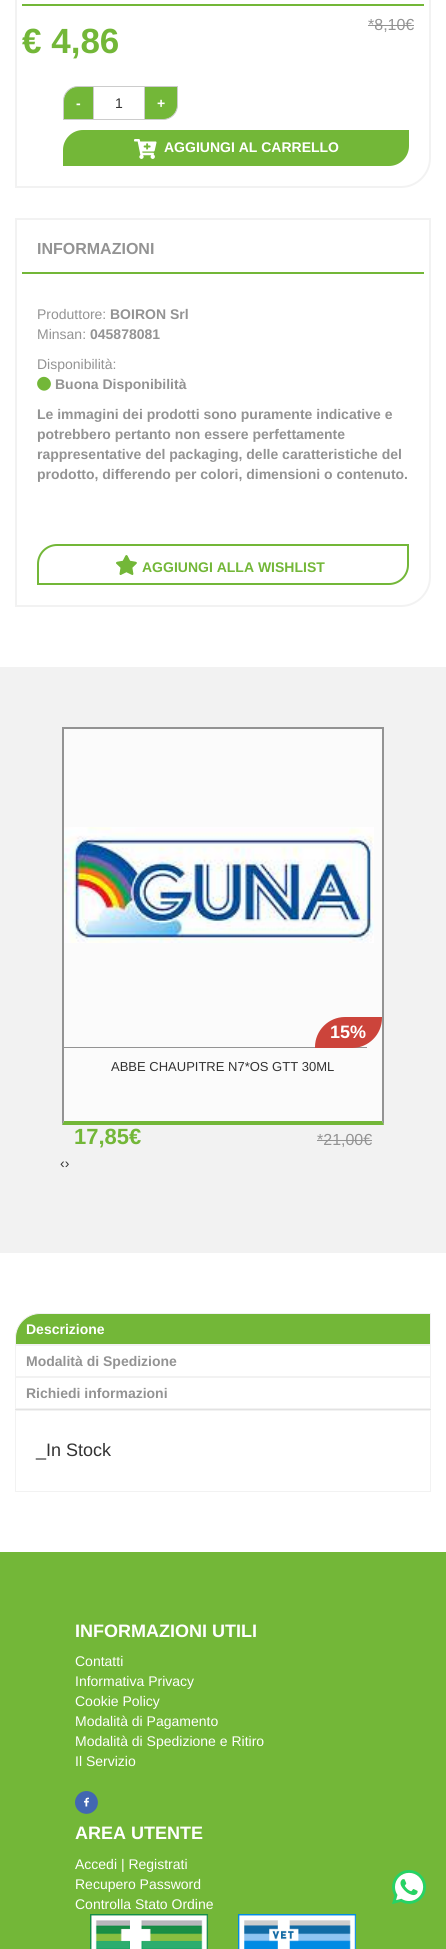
import math
import cairo


def use_color(cr, r, g, b):
  cr.set_source_rgb(r / 255, g / 255, b / 255)

def text(cr, x, y, s, family, size, color, bold=False, italic=False):
  cr.select_font_face(family, cairo.FONT_SLANT_ITALIC if italic else cairo.FONT_SLANT_NORMAL, cairo.FONT_WEIGHT_BOLD if bold else cairo.FONT_WEIGHT_NORMAL)
  cr.set_font_size(size)
  use_color(cr, *color)
  cr.move_to(x, y)
  cr.show_text(s)

def box(cr, x, y, w, h, *color):
  use_color(cr, *color)
  cr.rectangle(x, y, w, h)
  cr.fill()

def picture(cr, path, x, y, w, h):
  cr.save()
  cr.set_source_surface(cairo.ImageSurface.create_from_png(path), x, y)
  cr.rectangle(x, y, w, h)
  cr.fill()
  cr.restore()

def draw(cr):
  use_color(cr, 255, 255, 255)
  cr.paint()
  cr.new_path()
  cr.move_to(16, -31)
  cr.line_to(430, -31)
  cr.line_to(430, 158)
  cr.curve_to(430, 174, 417, 187, 401, 187)
  cr.line_to(16, 187)
  cr.close_path()
  use_color(cr, 242, 242, 242)
  cr.stroke()
  box(cr, 22, 4, 402, 2, 115, 183, 56)
  box(cr, 368, 25, 46, 1, 147, 147, 147)
  use_color(cr, 115, 183, 56)
  cr.new_path()
  cr.move_to(78, 86.5)
  cr.line_to(93.5, 86.5)
  cr.line_to(93.5, 119.5)
  cr.line_to(63.5, 119.5)
  cr.line_to(63.5, 101)
  cr.curve_to(63.5, 93, 70, 86.5, 78, 86.5)
  cr.close_path()
  cr.fill_preserve()
  use_color(cr, 204, 204, 204)
  cr.set_line_width(1)
  cr.stroke()
  cr.rectangle(93.5, 86.5, 51, 33)
  cr.stroke()
  use_color(cr, 115, 183, 56)
  cr.new_path()
  cr.move_to(144.5, 86.5)
  cr.line_to(177.5, 86.5)
  cr.line_to(177.5, 105)
  cr.curve_to(177.5, 113, 171, 119.5, 163, 119.5)
  cr.line_to(144.5, 119.5)
  cr.close_path()
  cr.fill_preserve()
  use_color(cr, 204, 204, 204)
  cr.stroke()
  use_color(cr, 115, 183, 56)
  cr.new_path()
  cr.move_to(83, 130)
  cr.line_to(409, 130)
  cr.line_to(409, 146)
  cr.curve_to(409, 157, 400, 166, 389, 166)
  cr.line_to(63, 166)
  cr.line_to(63, 150)
  cr.curve_to(63, 139, 72, 130, 83, 130)
  cr.close_path()
  cr.fill()
  picture(cr, "img_01.png", 134, 139, 23, 20)
  cr.new_path()
  cr.move_to(16, 219)
  cr.line_to(430, 219)
  cr.line_to(430, 577)
  cr.curve_to(430, 593, 417, 606, 401, 606)
  cr.line_to(16, 606)
  cr.close_path()
  use_color(cr, 242, 242, 242)
  cr.set_line_width(2)
  cr.stroke()
  box(cr, 22, 272, 402, 2, 115, 183, 56)
  cr.new_path()
  cr.move_to(39, 379)
  cr.curve_to(45.5, 372.5, 55, 382, 49, 388.5)
  cr.curve_to(42.5, 395, 33, 385.5, 39, 379)
  cr.close_path()
  cr.fill()
  cr.new_path()
  cr.move_to(57, 545)
  cr.line_to(408, 545)
  cr.line_to(408, 565)
  cr.curve_to(408, 575.5, 399.5, 584, 389, 584)
  cr.line_to(38, 584)
  cr.line_to(38, 564)
  cr.curve_to(38, 553.5, 46.5, 545, 57, 545)
  cr.close_path()
  cr.stroke()
  picture(cr, "img_02.png", 116, 555, 21, 20)
  box(cr, 0, 667, 446, 586, 242, 242, 242)
  box(cr, 63, 729, 320, 394, 251, 251, 251)
  box(cr, 62, 727, 322, 1, 147, 147, 147)
  cr.new_path()
  cr.move_to(384, 727)
  cr.line_to(384, 1125)
  cr.line_to(383, 1123)
  cr.line_to(383, 728)
  cr.close_path()
  cr.fill()
  use_color(cr, 115, 183, 56)
  cr.new_path()
  cr.move_to(384, 1125)
  cr.line_to(62, 1125)
  cr.line_to(63, 1123)
  cr.line_to(383, 1123)
  cr.close_path()
  cr.fill()
  use_color(cr, 147, 147, 147)
  cr.new_path()
  cr.move_to(62, 1125)
  cr.line_to(62, 727)
  cr.line_to(63, 728)
  cr.line_to(63, 1123)
  cr.close_path()
  cr.fill()
  box(cr, 63, 728, 320, 1, 147, 147, 147)
  cr.new_path()
  cr.move_to(383, 728)
  cr.line_to(383, 1123)
  cr.line_to(382, 1121)
  cr.line_to(382, 729)
  cr.close_path()
  cr.fill()
  use_color(cr, 115, 183, 56)
  cr.new_path()
  cr.move_to(383, 1123)
  cr.line_to(63, 1123)
  cr.line_to(64, 1121)
  cr.line_to(382, 1121)
  cr.close_path()
  cr.fill()
  use_color(cr, 147, 147, 147)
  cr.new_path()
  cr.move_to(63, 1123)
  cr.line_to(63, 728)
  cr.line_to(64, 729)
  cr.line_to(64, 1121)
  cr.close_path()
  cr.fill()
  box(cr, 64, 1047, 303, 1, 147, 147, 147)
  picture(cr, "img_03.png", 64, 827, 310, 116)
  use_color(cr, 204, 68, 59)
  cr.new_path()
  cr.move_to(345, 1017)
  cr.line_to(382, 1017)
  cr.line_to(382, 1018)
  cr.curve_to(382, 1034.5, 368.5, 1048, 352, 1048)
  cr.line_to(315, 1048)
  cr.line_to(315, 1047)
  cr.curve_to(315, 1030.5, 328.5, 1017, 345, 1017)
  cr.close_path()
  cr.fill()
  box(cr, 317, 1140, 55, 1, 147, 147, 147)
  use_color(cr, 115, 183, 56)
  cr.new_path()
  cr.move_to(40, 1313.5)
  cr.line_to(430.5, 1313.5)
  cr.line_to(430.5, 1344.5)
  cr.line_to(15.5, 1344.5)
  cr.line_to(15.5, 1338)
  cr.curve_to(15.5, 1324.5, 26.5, 1313.5, 40, 1313.5)
  cr.close_path()
  cr.fill_preserve()
  use_color(cr, 242, 242, 242)
  cr.set_line_width(1)
  cr.stroke()
  cr.rectangle(15.5, 1345.5, 415, 31)
  cr.stroke()
  box(cr, 15, 1409, 416, 1, 226, 226, 226)
  cr.rectangle(15.5, 1377.5, 415, 31)
  use_color(cr, 242, 242, 242)
  cr.stroke()
  cr.rectangle(15.5, 1410.5, 415, 81)
  cr.stroke()
  box(cr, 0, 1552, 446, 397, 115, 183, 56)
  picture(cr, "img_04.png", 75, 1791, 23, 23)
  picture(cr, "img_05.png", 90, 1914, 118, 35)
  picture(cr, "img_06.png", 238, 1914, 118, 35)
  picture(cr, "img_07.png", 392, 1870, 34, 34)
  text(cr, 368, 30, "*8,10€", "Liberation Sans", 16, (147, 147, 147))
  text(cr, 22, 53, "€ 4,86", "Liberation Sans", 35, (115, 183, 56), bold=True)
  text(cr, 76, 108, "-", "Liberation Sans", 14, (255, 255, 255), bold=True)
  text(cr, 115, 108, "1", "Liberation Sans", 14, (51, 51, 51))
  text(cr, 157, 108, "+", "Liberation Sans", 14, (255, 255, 255), bold=True)
  text(cr, 164, 152, "AGGIUNGI AL CARRELLO", "Liberation Sans", 14, (255, 255, 255), bold=True)
  text(cr, 37, 254, "INFORMAZIONI", "Liberation Sans", 16, (147, 147, 147), bold=True)
  text(cr, 37, 319, "Produttore:", "Liberation Sans", 14, (147, 147, 147))
  text(cr, 110, 319, "BOIRON Srl", "Liberation Sans", 14, (147, 147, 147), bold=True)
  text(cr, 37, 339, "Minsan:", "Liberation Sans", 14, (147, 147, 147))
  text(cr, 90, 339, "045878081", "Liberation Sans", 14, (147, 147, 147), bold=True)
  text(cr, 37, 369, "Disponibilità:", "Liberation Sans", 14, (147, 147, 147))
  text(cr, 55, 389, "Buona Disponibilità", "Liberation Sans", 14, (147, 147, 147), bold=True)
  text(cr, 37, 419, "Le immagini dei prodotti sono puramente indicative e", "Liberation Sans", 14, (147, 147, 147), bold=True)
  text(cr, 37, 439, "potrebbero pertanto non essere perfettamente", "Liberation Sans", 14, (147, 147, 147), bold=True)
  text(cr, 37, 459, "rappresentative del packaging, delle caratteristiche del", "Liberation Sans", 14, (147, 147, 147), bold=True)
  text(cr, 37, 479, "prodotto, differendo per colori, dimensioni o contenuto.", "Liberation Sans", 14, (147, 147, 147), bold=True)
  text(cr, 142, 572, "AGGIUNGI ALLA WISHLIST", "Liberation Sans", 14, (115, 183, 56), bold=True)
  text(cr, 330, 1038, "15%", "Liberation Sans", 18, (255, 255, 255), bold=True)
  text(cr, 111, 1071, "ABBE CHAUPITRE N7*OS GTT 30ML", "Liberation Sans", 13, (51, 51, 51))
  text(cr, 74, 1144, "17,85€", "Liberation Sans", 22, (115, 183, 56), bold=True)
  text(cr, 317, 1145, "*21,00€", "Liberation Sans", 16, (147, 147, 147))
  text(cr, 60, 1168, "‹›", "Liberation Sans", 14, (51, 51, 51))
  text(cr, 26, 1334, "Descrizione", "Liberation Sans", 14, (255, 255, 255), bold=True)
  text(cr, 26, 1366, "Modalità di Spedizione", "Liberation Sans", 14, (147, 147, 147), bold=True)
  text(cr, 26, 1398, "Richiedi informazioni", "Liberation Sans", 14, (147, 147, 147), bold=True)
  text(cr, 36, 1456, "_In Stock", "Liberation Sans", 18, (51, 51, 51))
  text(cr, 75, 1637, "INFORMAZIONI UTILI", "Liberation Sans", 18, (255, 255, 255), bold=True)
  text(cr, 75, 1666, "Contatti", "Liberation Sans", 14, (255, 255, 255))
  text(cr, 75, 1686, "Informativa Privacy", "Liberation Sans", 14, (255, 255, 255))
  text(cr, 75, 1706, "Cookie Policy", "Liberation Sans", 14, (255, 255, 255))
  text(cr, 75, 1726, "Modalità di Pagamento", "Liberation Sans", 14, (255, 255, 255))
  text(cr, 75, 1746, "Modalità di Spedizione e Ritiro", "Liberation Sans", 14, (255, 255, 255))
  text(cr, 75, 1766, "Il Servizio", "Liberation Sans", 14, (255, 255, 255))
  text(cr, 75, 1839, "AREA UTENTE", "Liberation Sans", 18, (255, 255, 255), bold=True)
  text(cr, 75, 1869, "Accedi | Registrati", "Liberation Sans", 14, (255, 255, 255))
  text(cr, 75, 1889, "Recupero Password", "Liberation Sans", 14, (255, 255, 255))
  text(cr, 75, 1909, "Controlla Stato Ordine", "Liberation Sans", 14, (255, 255, 255))


surface = cairo.ImageSurface(cairo.FORMAT_RGB24, 446, 1949)
cr = cairo.Context(surface)
options = cairo.FontOptions()
options.set_hint_metrics(cairo.HINT_METRICS_OFF)
options.set_hint_style(cairo.HINT_STYLE_NONE)
cr.set_font_options(options)
cr.set_miter_limit(4)
draw(cr)
surface.write_to_png("out.png")
